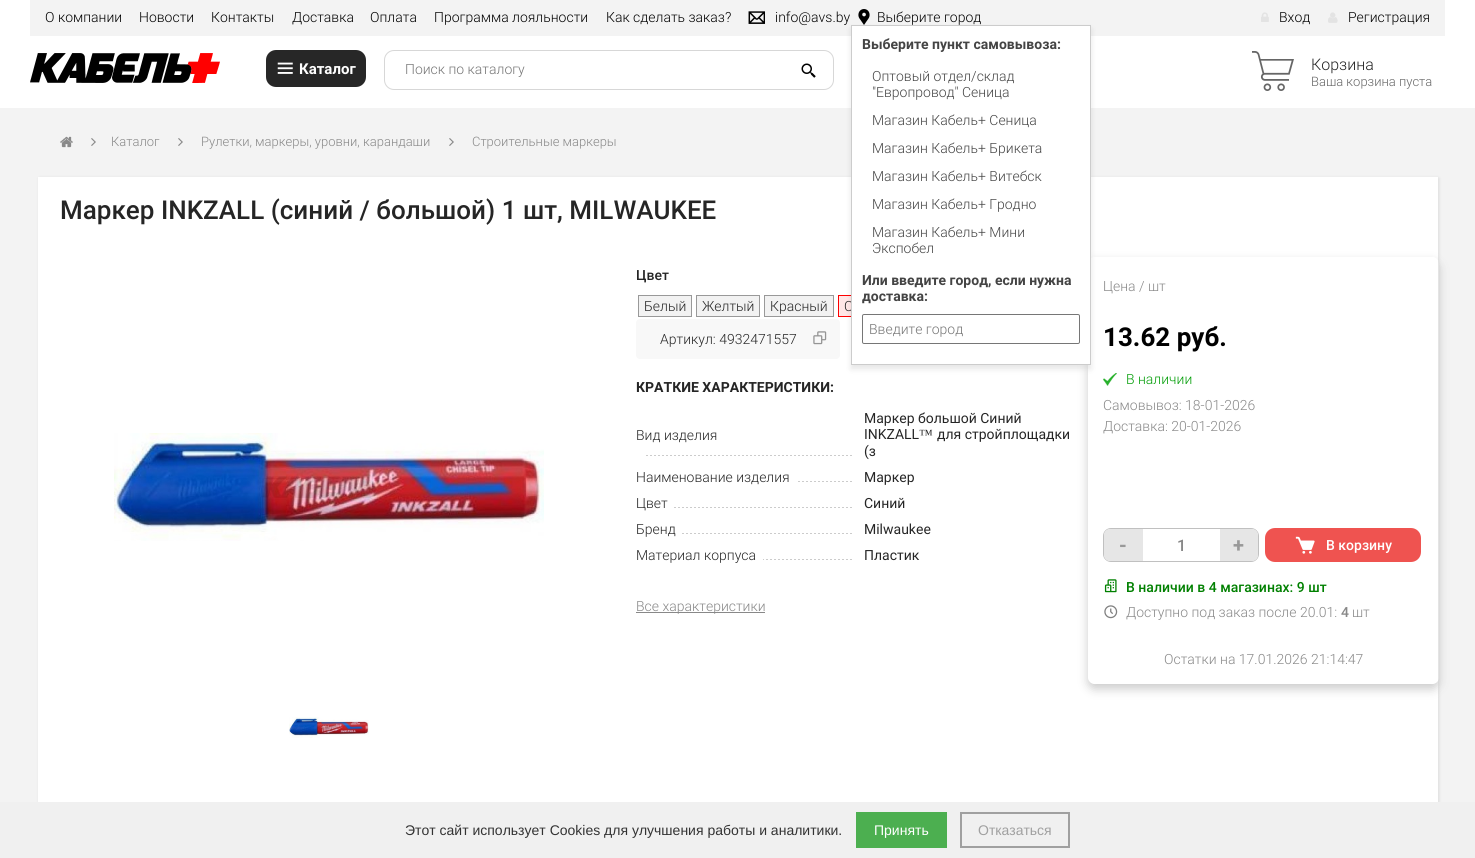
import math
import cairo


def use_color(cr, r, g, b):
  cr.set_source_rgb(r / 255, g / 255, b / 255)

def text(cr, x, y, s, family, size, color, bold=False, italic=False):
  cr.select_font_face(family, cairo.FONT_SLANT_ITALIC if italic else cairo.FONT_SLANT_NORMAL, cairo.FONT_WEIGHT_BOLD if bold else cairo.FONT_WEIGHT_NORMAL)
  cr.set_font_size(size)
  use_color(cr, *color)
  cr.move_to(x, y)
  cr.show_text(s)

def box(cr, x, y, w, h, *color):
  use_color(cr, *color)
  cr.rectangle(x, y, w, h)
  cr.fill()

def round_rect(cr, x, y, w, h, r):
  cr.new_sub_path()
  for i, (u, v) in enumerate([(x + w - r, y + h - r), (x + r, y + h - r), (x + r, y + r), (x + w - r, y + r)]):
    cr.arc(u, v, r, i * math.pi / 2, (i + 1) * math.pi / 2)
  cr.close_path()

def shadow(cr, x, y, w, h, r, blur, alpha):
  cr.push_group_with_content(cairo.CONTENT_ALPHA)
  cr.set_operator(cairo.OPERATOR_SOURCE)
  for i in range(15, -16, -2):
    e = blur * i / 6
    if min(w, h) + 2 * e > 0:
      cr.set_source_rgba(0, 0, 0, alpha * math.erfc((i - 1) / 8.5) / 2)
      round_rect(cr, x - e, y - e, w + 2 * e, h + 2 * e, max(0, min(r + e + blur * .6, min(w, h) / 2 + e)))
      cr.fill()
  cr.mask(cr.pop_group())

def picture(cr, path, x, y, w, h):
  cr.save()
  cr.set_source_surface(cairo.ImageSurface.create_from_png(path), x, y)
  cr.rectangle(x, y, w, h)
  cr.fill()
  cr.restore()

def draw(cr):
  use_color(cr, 255, 255, 255)
  cr.paint()
  box(cr, 30, 0, 1415, 36, 243, 243, 243)
  picture(cr, "img_01.png", 748, 11, 17, 13)
  picture(cr, "img_02.png", 858, 9, 12, 16)
  box(cr, 0, 108, 1475, 694, 243, 243, 243)
  use_color(cr, 0, 0, 0)
  shadow(cr, 39, 178, 1400, 654, 0, 1.5, 0.1)
  box(cr, 38, 177, 1400, 625, 255, 255, 255)
  box(cr, 839, 296, 12, 20, 255, 230, 230)
  cr.rectangle(838.5, 295.5, 52, 21)
  use_color(cr, 255, 0, 0)
  cr.set_line_width(1)
  cr.stroke()
  use_color(cr, 0, 0, 0)
  shadow(cr, 851, 29, 240, 340, 0, 3, 0.1)
  picture(cr, "img_03.png", 1261, 12, 8, 10)
  picture(cr, "img_04.png", 1328, 12, 10, 11)
  picture(cr, "img_05.png", 30, 53, 190, 30)
  use_color(cr, 39, 39, 39)
  round_rect(cr, 266, 50, 100, 37, 10)
  cr.fill()
  picture(cr, "img_06.png", 277, 62, 16, 12)
  round_rect(cr, 384.5, 50.5, 449, 39, 9.5)
  use_color(cr, 215, 215, 215)
  cr.stroke()
  picture(cr, "img_07.png", 801, 63, 15, 15)
  picture(cr, "img_08.png", 1252, 51, 42, 40)
  picture(cr, "img_09.png", 60, 136, 13, 12)
  picture(cr, "img_10.png", 91, 138, 5, 8)
  picture(cr, "img_10.png", 178, 138, 5, 8)
  picture(cr, "img_10.png", 449, 138, 5, 8)
  picture(cr, "img_11.png", 114, 433, 430, 108)
  picture(cr, "img_12.png", 289, 717, 80, 21)
  use_color(cr, 242, 242, 242)
  cr.rectangle(638.5, 295.5, 53, 21)
  cr.fill_preserve()
  use_color(cr, 153, 153, 153)
  cr.stroke()
  use_color(cr, 242, 242, 242)
  cr.rectangle(696.5, 295.5, 63, 21)
  cr.fill_preserve()
  use_color(cr, 153, 153, 153)
  cr.stroke()
  use_color(cr, 242, 242, 242)
  cr.rectangle(764.5, 295.5, 69, 21)
  cr.fill_preserve()
  use_color(cr, 153, 153, 153)
  cr.stroke()
  use_color(cr, 248, 248, 248)
  round_rect(cr, 636, 319, 204, 40, 4)
  cr.fill()
  picture(cr, "img_13.png", 813, 331, 14, 14)
  picture(cr, "img_14.png", 646, 455, 206, 1)
  picture(cr, "img_15.png", 798, 481, 54, 1)
  picture(cr, "img_16.png", 674, 507, 178, 1)
  picture(cr, "img_17.png", 682, 533, 170, 1)
  picture(cr, "img_18.png", 763, 559, 89, 1)
  box(cr, 636, 612, 129, 1, 136, 136, 136)
  cr.save()
  cr.set_fill_rule(cairo.FILL_RULE_EVEN_ODD)
  cr.new_path()
  cr.move_to(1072, 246)
  cr.line_to(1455, 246)
  cr.line_to(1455, 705)
  cr.line_to(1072, 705)
  cr.close_path()
  cr.move_to(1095, 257)
  cr.line_to(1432, 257)
  cr.curve_to(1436, 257, 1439, 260, 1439, 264)
  cr.line_to(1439, 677)
  cr.curve_to(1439, 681, 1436, 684, 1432, 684)
  cr.line_to(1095, 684)
  cr.curve_to(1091, 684, 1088, 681, 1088, 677)
  cr.line_to(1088, 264)
  cr.curve_to(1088, 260, 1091, 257, 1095, 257)
  cr.close_path()
  cr.clip()
  use_color(cr, 204, 204, 204)
  shadow(cr, 1088, 262, 351, 427, 7, 5, 1)
  cr.restore()
  picture(cr, "img_19.png", 1103, 373, 14, 13)
  round_rect(cr, 1103.5, 528.5, 155, 33, 7.5)
  use_color(cr, 192, 192, 192)
  cr.stroke()
  use_color(cr, 230, 230, 230)
  cr.new_path()
  cr.move_to(1110, 529)
  cr.line_to(1143, 529)
  cr.line_to(1143, 561)
  cr.line_to(1110, 561)
  cr.curve_to(1106.5, 561, 1104, 558.5, 1104, 555)
  cr.line_to(1104, 535)
  cr.curve_to(1104, 531.5, 1106.5, 529, 1110, 529)
  cr.close_path()
  cr.fill()
  cr.new_path()
  cr.move_to(1220, 529)
  cr.line_to(1252, 529)
  cr.curve_to(1255.5, 529, 1258, 531.5, 1258, 535)
  cr.line_to(1258, 555)
  cr.curve_to(1258, 558.5, 1255.5, 561, 1252, 561)
  cr.line_to(1220, 561)
  cr.close_path()
  cr.fill()
  use_color(cr, 239, 83, 80)
  round_rect(cr, 1265, 528, 156, 34, 10)
  cr.fill()
  picture(cr, "img_20.png", 1295, 536, 20, 18)
  picture(cr, "img_21.png", 1104, 579, 13, 14)
  picture(cr, "img_22.png", 1104, 605, 14, 14)
  box(cr, 0, 802, 1475, 56, 240, 240, 240)
  box(cr, 856, 812, 91, 36, 76, 175, 80)
  cr.rectangle(961, 813, 108, 34)
  use_color(cr, 160, 160, 160)
  cr.set_line_width(2)
  cr.stroke()
  text(cr, 45, 22, "О компании", "Roboto Light", 14, (0, 0, 0))
  text(cr, 139, 22, "Новости", "Roboto Light", 14, (0, 0, 0))
  text(cr, 211, 22, "Контакты", "Roboto Light", 14, (0, 0, 0))
  text(cr, 292, 22, "Доставка", "Roboto Light", 14, (0, 0, 0))
  text(cr, 370, 22, "Оплата", "Roboto Light", 14, (0, 0, 0))
  text(cr, 434, 22, "Программа лояльности", "Roboto Light", 14, (0, 0, 0))
  text(cr, 606, 22, "Как сделать заказ?", "Roboto Light", 14, (0, 0, 0))
  text(cr, 775, 22, "info@avs.by", "Roboto Light", 14, (0, 0, 0))
  text(cr, 877, 22, "Выберите город", "Roboto Light", 14, (0, 0, 0))
  text(cr, 1279, 22, "Вход", "Roboto Light", 14, (0, 0, 0))
  text(cr, 1348, 22, "Регистрация", "Roboto Light", 14, (0, 0, 0))
  text(cr, 299, 74, "Каталог", "Roboto", 15, (255, 255, 255), bold=True)
  text(cr, 405, 74, "Поиск по каталогу", "Roboto Light", 14, (117, 117, 117))
  text(cr, 1311, 70, "Корзина", "Roboto Light", 16, (37, 37, 37))
  text(cr, 1311, 86, "Ваша корзина пуста", "Roboto Light", 13, (102, 102, 102))
  text(cr, 111, 146, "Каталог", "Roboto Light", 13, (136, 136, 136))
  text(cr, 201, 146, "Рулетки, маркеры, уровни, карандаши", "Roboto Light", 13, (136, 136, 136))
  text(cr, 472, 146, "Строительные маркеры", "Roboto Light", 13, (136, 136, 136))
  text(cr, 60, 219, "Маркер INKZALL (синий / большой) 1 шт, MILWAUKEE", "Roboto Medium", 26, (37, 37, 37))
  text(cr, 636, 280, "Цвет", "Roboto Medium", 14, (37, 37, 37))
  text(cr, 644, 311, "Белый", "Roboto Light", 14, (37, 37, 37))
  text(cr, 702, 311, "Желтый", "Roboto Light", 14, (37, 37, 37))
  text(cr, 770, 311, "Красный", "Roboto Light", 14, (37, 37, 37))
  text(cr, 844, 311, "С", "Roboto Light", 14, (37, 37, 37))
  use_color(cr, 255, 255, 255)
  cr.rectangle(851.5, 25.5, 239, 339)
  cr.fill_preserve()
  use_color(cr, 204, 204, 204)
  cr.set_line_width(1)
  cr.stroke()
  round_rect(cr, 862.5, 314.5, 217, 29, 1.5)
  use_color(cr, 118, 118, 118)
  cr.stroke()
  text(cr, 869, 334, "Введите город", "Roboto Light", 14, (117, 117, 117))
  text(cr, 862, 301, "доставка:", "Roboto", 14, (68, 68, 68), bold=True)
  text(cr, 862, 285, "Или введите город, если нужна", "Roboto", 14, (68, 68, 68), bold=True)
  text(cr, 872, 253, "Экспобел", "Roboto Light", 14, (68, 68, 68))
  text(cr, 872, 237, "Магазин Кабель+ Мини", "Roboto Light", 14, (68, 68, 68))
  text(cr, 872, 209, "Магазин Кабель+ Гродно", "Roboto Light", 14, (68, 68, 68))
  text(cr, 872, 181, "Магазин Кабель+ Витебск", "Roboto Light", 14, (68, 68, 68))
  text(cr, 872, 153, "Магазин Кабель+ Брикета", "Roboto Light", 14, (68, 68, 68))
  text(cr, 872, 125, "Магазин Кабель+ Сеница", "Roboto Light", 14, (68, 68, 68))
  text(cr, 872, 97, "\"Европровод\" Сеница", "Roboto Light", 14, (68, 68, 68))
  text(cr, 872, 81, "Оптовый отдел/cклад", "Roboto Light", 14, (68, 68, 68))
  text(cr, 862, 49, "Выберите пункт самовывоза:", "Roboto", 14, (68, 68, 68), bold=True)
  text(cr, 660, 344, "Артикул: 4932471557", "Roboto Light", 14, (37, 37, 37))
  text(cr, 636, 392, "КРАТКИЕ ХАРАКТЕРИСТИКИ:", "Roboto", 14, (37, 37, 37), bold=True)
  text(cr, 636, 440, "Вид изделия", "Roboto Light", 14, (37, 37, 37))
  text(cr, 864, 423, "Маркер большой Синий", "Roboto", 14, (37, 37, 37))
  text(cr, 864, 439, "INKZALL", "Roboto", 14, (37, 37, 37))
  text(cr, 919, 439, "™", "Liberation Serif", 14, (37, 37, 37))
  text(cr, 937, 439, "для стройплощадки", "Roboto", 14, (37, 37, 37))
  text(cr, 864, 456, "(з", "Roboto", 14, (37, 37, 37))
  text(cr, 636, 482, "Наименование изделия", "Roboto Light", 14, (37, 37, 37))
  text(cr, 864, 482, "Маркер", "Roboto", 14, (37, 37, 37))
  text(cr, 636, 508, "Цвет", "Roboto Light", 14, (37, 37, 37))
  text(cr, 864, 508, "Синий", "Roboto", 14, (37, 37, 37))
  text(cr, 636, 534, "Бренд", "Roboto Light", 14, (37, 37, 37))
  text(cr, 864, 534, "Milwaukee", "Roboto", 14, (37, 37, 37))
  text(cr, 636, 560, "Материал корпуса", "Roboto Light", 14, (37, 37, 37))
  text(cr, 864, 560, "Пластик", "Roboto", 14, (37, 37, 37))
  text(cr, 636, 611, "Все характеристики", "Roboto Light", 14, (136, 136, 136))
  text(cr, 1103, 291, "Цена / шт", "Roboto Light", 14, (136, 136, 136))
  text(cr, 1103, 346, "13.62 руб.", "Roboto", 26, (0, 0, 0), bold=True)
  text(cr, 1126, 384, "В наличии", "Roboto Light", 14, (1, 157, 6))
  text(cr, 1103, 410, "Самовывоз: 18-01-2026", "Roboto Light", 14, (136, 136, 136))
  text(cr, 1103, 431, "Доставка: 20-01-2026", "Roboto Light", 14, (136, 136, 136))
  text(cr, 1119, 552, "-", "Roboto", 20, (153, 153, 153), bold=True)
  text(cr, 1177, 551, "1", "Roboto Medium", 16, (136, 136, 136))
  text(cr, 1233, 552, "+", "Roboto", 20, (153, 153, 153), bold=True)
  text(cr, 1326, 550, "В корзину", "Roboto Medium", 14, (255, 255, 255))
  text(cr, 1126, 592, "В наличии в 4 магазинах: 9 шт", "Roboto Medium", 14, (0, 128, 0))
  text(cr, 1126, 617, "Доступно под заказ после 20.01:", "Roboto Light", 14, (136, 136, 136))
  text(cr, 1341, 617, "4", "Roboto Medium", 14, (136, 136, 136))
  text(cr, 1352, 617, "шт", "Roboto Light", 14, (136, 136, 136))
  text(cr, 1164, 664, "Остатки на 17.01.2026 21:14:47", "Roboto Light", 14, (136, 136, 136))
  text(cr, 405, 835, "Этот сайт использует Cookies для улучшения работы и аналитики.", "Liberation Sans", 14, (51, 51, 51))
  text(cr, 874, 835, "Принять", "Liberation Sans", 14, (255, 255, 255))
  text(cr, 978, 835, "Отказаться", "Liberation Sans", 14, (160, 160, 160))


surface = cairo.ImageSurface(cairo.FORMAT_RGB24, 1475, 858)
cr = cairo.Context(surface)
options = cairo.FontOptions()
options.set_hint_metrics(cairo.HINT_METRICS_OFF)
options.set_hint_style(cairo.HINT_STYLE_NONE)
cr.set_font_options(options)
cr.set_miter_limit(4)
draw(cr)
surface.write_to_png("out.png")
